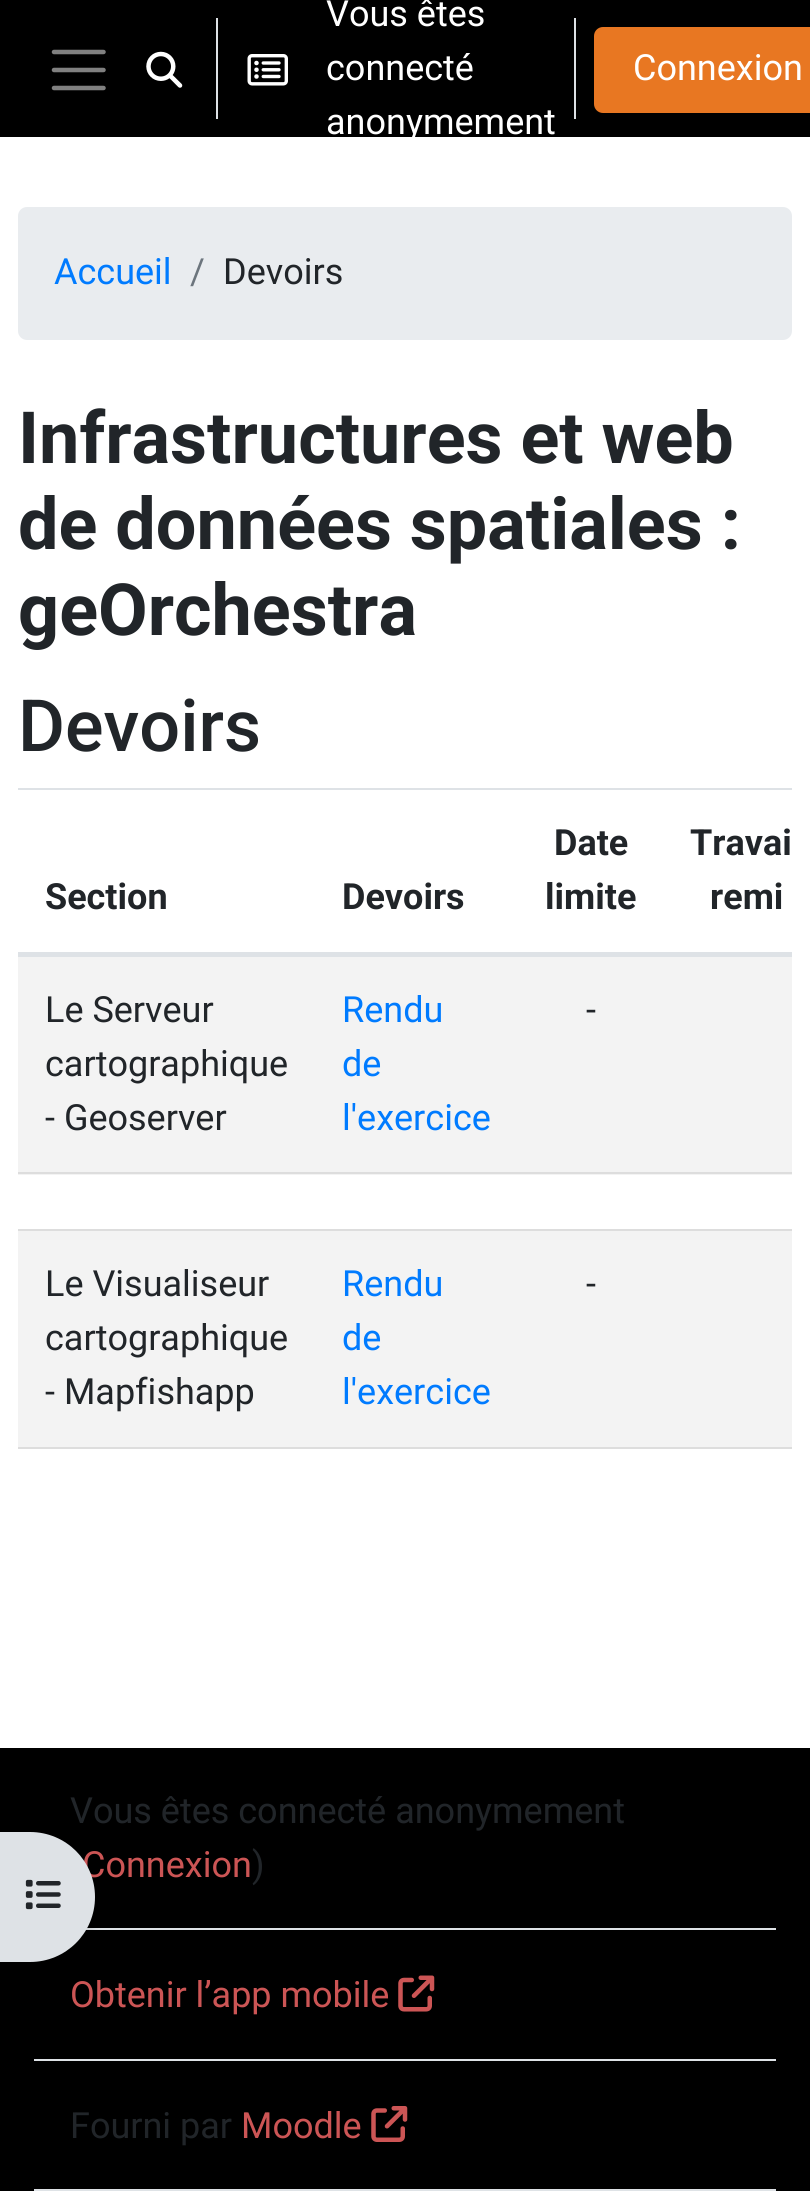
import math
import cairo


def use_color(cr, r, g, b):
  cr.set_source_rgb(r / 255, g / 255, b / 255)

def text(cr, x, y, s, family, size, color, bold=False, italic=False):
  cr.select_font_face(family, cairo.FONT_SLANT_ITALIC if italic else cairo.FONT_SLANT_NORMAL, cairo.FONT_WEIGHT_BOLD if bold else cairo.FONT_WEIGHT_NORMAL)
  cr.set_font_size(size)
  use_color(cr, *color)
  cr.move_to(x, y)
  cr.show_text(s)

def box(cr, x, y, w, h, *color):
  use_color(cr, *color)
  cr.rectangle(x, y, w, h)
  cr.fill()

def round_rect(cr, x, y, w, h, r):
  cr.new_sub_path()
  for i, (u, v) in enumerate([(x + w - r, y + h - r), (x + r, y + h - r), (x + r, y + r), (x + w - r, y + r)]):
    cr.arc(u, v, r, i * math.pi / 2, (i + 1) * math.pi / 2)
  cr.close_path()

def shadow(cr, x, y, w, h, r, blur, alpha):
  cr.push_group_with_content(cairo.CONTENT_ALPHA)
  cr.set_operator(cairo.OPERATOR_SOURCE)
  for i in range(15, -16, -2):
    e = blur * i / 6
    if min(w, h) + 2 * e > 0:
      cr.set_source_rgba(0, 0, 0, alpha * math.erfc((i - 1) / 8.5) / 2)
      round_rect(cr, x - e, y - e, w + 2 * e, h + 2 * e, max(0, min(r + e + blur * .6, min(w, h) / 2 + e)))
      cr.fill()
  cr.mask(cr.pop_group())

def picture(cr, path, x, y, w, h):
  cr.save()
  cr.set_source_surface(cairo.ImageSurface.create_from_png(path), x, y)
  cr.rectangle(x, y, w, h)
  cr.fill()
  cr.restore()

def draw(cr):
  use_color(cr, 255, 255, 255)
  cr.paint()
  box(cr, 0, 0, 810, 137, 0, 0, 0)
  cr.new_path()
  cr.move_to(54, 52)
  cr.line_to(103.5, 52)
  cr.move_to(54, 70)
  cr.line_to(103.5, 70)
  cr.move_to(54, 88)
  cr.line_to(103.5, 88)
  use_color(cr, 128, 128, 128)
  cr.set_line_width(4.5)
  cr.set_line_cap(cairo.LINE_CAP_ROUND)
  cr.stroke()
  picture(cr, "img_01.png", 146, 51, 37, 37)
  box(cr, 216, 18, 2, 101, 222, 226, 230)
  picture(cr, "img_02.png", 247, 54, 41, 32)
  box(cr, 574, 18, 2, 101, 222, 226, 230)
  use_color(cr, 232, 119, 34)
  round_rect(cr, 595, 28, 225, 84, 8)
  cr.fill_preserve()
  cr.set_line_width(2)
  cr.set_line_cap(cairo.LINE_CAP_BUTT)
  cr.stroke()
  use_color(cr, 233, 236, 239)
  round_rect(cr, 18, 207, 774, 133, 9)
  cr.fill()
  box(cr, 18, 788, 774, 2, 222, 226, 230)
  box(cr, 18, 952, 774, 5, 222, 226, 230)
  box(cr, 18, 957, 774, 218, 243, 243, 243)
  box(cr, 18, 1172, 774, 2, 221, 221, 221)
  box(cr, 18, 1229, 774, 2, 221, 221, 221)
  box(cr, 18, 1231, 774, 216, 243, 243, 243)
  box(cr, 18, 1447, 774, 2, 221, 221, 221)
  box(cr, 0, 1748, 810, 443, 0, 0, 0)
  box(cr, 86, 1928, 690, 2, 222, 226, 230)
  use_color(cr, 0, 0, 0)
  shadow(cr, 0, 1836, 95, 131, 65, 4.5, 0.07)
  box(cr, 34, 2059, 742, 2, 222, 226, 230)
  picture(cr, "img_04.png", 398, 1975, 37, 37)
  box(cr, 34, 2189, 742, 2, 222, 226, 230)
  picture(cr, "img_05.png", 371, 2106, 37, 36)
  text(cr, 326, 26, "Vous êtes", "Roboto", 36, (255, 255, 255))
  text(cr, 326, 80, "connecté", "Roboto", 36, (255, 255, 255))
  text(cr, 633, 80, "Connexion", "Roboto", 36, (255, 255, 255))
  text(cr, 326, 134, "anonymement", "Roboto", 36, (255, 255, 255))
  text(cr, 54, 284, "Accueil", "Roboto", 36, (0, 123, 255))
  text(cr, 190, 284, "/", "Roboto", 36, (108, 117, 125))
  text(cr, 223, 284, "Devoirs", "Roboto", 36, (33, 37, 41))
  text(cr, 18, 463, "Infrastructures et web", "Roboto", 72, (33, 37, 41), bold=True)
  text(cr, 18, 549, "de données spatiales :", "Roboto", 72, (33, 37, 41), bold=True)
  text(cr, 18, 635, "geOrchestra", "Roboto", 72, (33, 37, 41), bold=True)
  text(cr, 18, 751, "Devoirs", "Roboto Medium", 72, (33, 37, 41))
  text(cr, 45, 909, "Section", "Roboto", 36, (33, 37, 41), bold=True)
  text(cr, 342, 909, "Devoirs", "Roboto", 36, (33, 37, 41), bold=True)
  text(cr, 554, 855, "Date", "Roboto", 36, (33, 37, 41), bold=True)
  text(cr, 545, 909, "limite", "Roboto", 36, (33, 37, 41), bold=True)
  text(cr, 690, 855, "Travai", "Roboto", 36, (33, 37, 41), bold=True)
  text(cr, 710, 909, "remi", "Roboto", 36, (33, 37, 41), bold=True)
  text(cr, 45, 1022, "Le Serveur", "Roboto", 36, (33, 37, 41))
  text(cr, 45, 1076, "cartographique", "Roboto", 36, (33, 37, 41))
  text(cr, 45, 1130, "- Geoserver", "Roboto", 36, (33, 37, 41))
  text(cr, 342, 1022, "Rendu", "Roboto", 36, (0, 123, 255))
  text(cr, 342, 1076, "de", "Roboto", 36, (0, 123, 255))
  text(cr, 342, 1130, "l'exercice", "Roboto", 36, (0, 123, 255))
  text(cr, 586, 1022, "-", "Roboto", 36, (33, 37, 41))
  text(cr, 45, 1296, "Le Visualiseur", "Roboto", 36, (33, 37, 41))
  text(cr, 45, 1350, "cartographique", "Roboto", 36, (33, 37, 41))
  text(cr, 45, 1404, "- Mapfishapp", "Roboto", 36, (33, 37, 41))
  text(cr, 342, 1296, "Rendu", "Roboto", 36, (0, 123, 255))
  text(cr, 342, 1350, "de", "Roboto", 36, (0, 123, 255))
  text(cr, 342, 1404, "l'exercice", "Roboto", 36, (0, 123, 255))
  text(cr, 586, 1296, "-", "Roboto", 36, (33, 37, 41))
  text(cr, 70, 1823, "Vous êtes connecté anonymement", "Roboto", 36, (33, 37, 41))
  text(cr, 82, 1877, "Connexion", "Roboto", 36, (204, 85, 85))
  use_color(cr, 222, 226, 230)
  cr.new_path()
  cr.move_to(0, 1832)
  cr.line_to(30, 1832)
  cr.curve_to(66, 1832, 95, 1861, 95, 1897)
  cr.curve_to(95, 1933, 66, 1962, 30, 1962)
  cr.line_to(0, 1962)
  cr.close_path()
  cr.fill()
  picture(cr, "img_03.png", 25, 1879, 36, 31)
  text(cr, 252, 1877, ")", "Roboto", 36, (33, 37, 41))
  text(cr, 70, 2007, "Obtenir l’app mobile", "Roboto", 36, (204, 85, 85))
  text(cr, 70, 2138, "Fourni par", "Roboto", 36, (33, 37, 41))
  text(cr, 241, 2138, "Moodle", "Roboto", 36, (204, 85, 85))


surface = cairo.ImageSurface(cairo.FORMAT_RGB24, 810, 2191)
cr = cairo.Context(surface)
options = cairo.FontOptions()
options.set_hint_metrics(cairo.HINT_METRICS_OFF)
options.set_hint_style(cairo.HINT_STYLE_NONE)
cr.set_font_options(options)
cr.set_miter_limit(4)
draw(cr)
surface.write_to_png("out.png")
